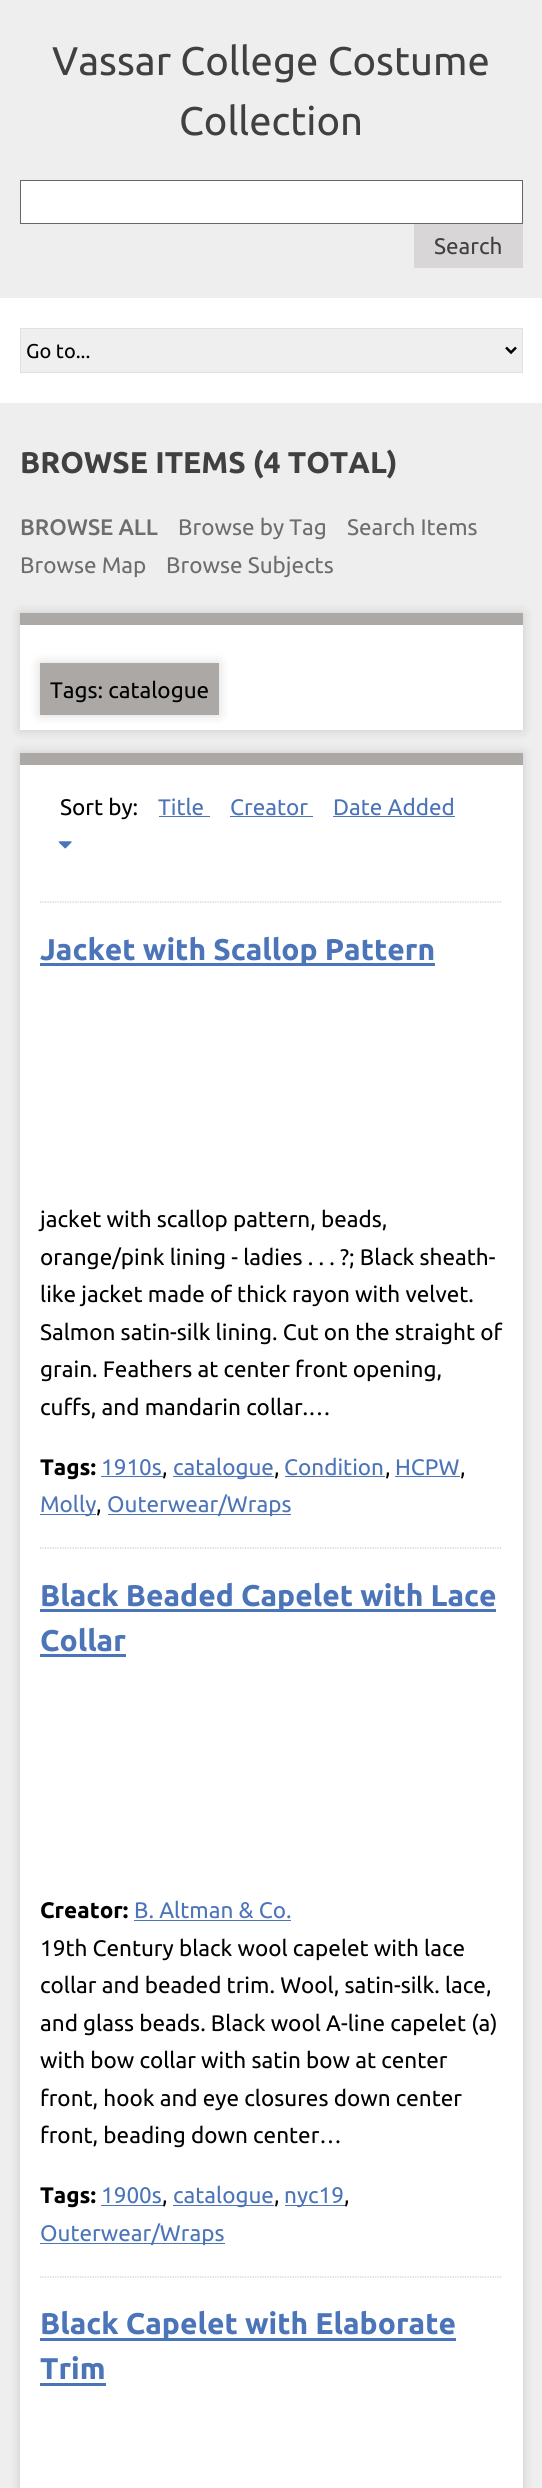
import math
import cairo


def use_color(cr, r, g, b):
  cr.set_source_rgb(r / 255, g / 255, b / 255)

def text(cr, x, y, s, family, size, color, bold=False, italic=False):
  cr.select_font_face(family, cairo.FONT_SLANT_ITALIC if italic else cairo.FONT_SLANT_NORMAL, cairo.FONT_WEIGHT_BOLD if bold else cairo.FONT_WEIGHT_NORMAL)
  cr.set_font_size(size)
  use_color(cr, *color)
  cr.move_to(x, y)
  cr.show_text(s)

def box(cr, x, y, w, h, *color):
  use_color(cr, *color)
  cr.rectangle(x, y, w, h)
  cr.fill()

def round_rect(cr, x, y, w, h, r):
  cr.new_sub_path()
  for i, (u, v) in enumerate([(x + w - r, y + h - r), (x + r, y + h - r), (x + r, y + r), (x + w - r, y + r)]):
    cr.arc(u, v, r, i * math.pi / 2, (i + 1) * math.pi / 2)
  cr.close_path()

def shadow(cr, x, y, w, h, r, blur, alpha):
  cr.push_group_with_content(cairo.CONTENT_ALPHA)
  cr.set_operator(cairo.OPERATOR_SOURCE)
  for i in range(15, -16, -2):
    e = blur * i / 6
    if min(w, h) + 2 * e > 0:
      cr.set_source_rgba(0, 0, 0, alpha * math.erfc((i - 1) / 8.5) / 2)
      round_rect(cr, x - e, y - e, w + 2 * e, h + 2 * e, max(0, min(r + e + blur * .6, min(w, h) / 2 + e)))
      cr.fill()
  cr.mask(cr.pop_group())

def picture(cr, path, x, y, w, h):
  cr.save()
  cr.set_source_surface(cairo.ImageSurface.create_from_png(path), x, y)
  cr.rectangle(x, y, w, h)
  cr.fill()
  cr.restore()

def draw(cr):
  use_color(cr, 238, 238, 238)
  cr.paint()
  use_color(cr, 255, 255, 255)
  cr.rectangle(20.5, 180.5, 502, 43)
  cr.fill_preserve()
  use_color(cr, 102, 102, 102)
  cr.set_line_width(1)
  cr.stroke()
  box(cr, 414, 224, 109, 44, 216, 214, 214)
  box(cr, 0, 298, 542, 105, 255, 255, 255)
  use_color(cr, 239, 239, 239)
  cr.rectangle(20.5, 328.5, 502, 44)
  cr.fill_preserve()
  use_color(cr, 223, 226, 226)
  cr.stroke()
  cr.new_path()
  cr.move_to(506, 347.5)
  cr.line_to(511, 352.5)
  cr.line_to(516, 347.5)
  use_color(cr, 0, 0, 0)
  cr.set_line_width(2.5)
  cr.stroke()
  use_color(cr, 0, 0, 0)
  shadow(cr, 20, 613, 503, 117, 0, 6, 0.15)
  box(cr, 20, 625, 503, 105, 255, 255, 255)
  box(cr, 20, 613, 503, 12, 172, 168, 165)
  use_color(cr, 0, 0, 0)
  shadow(cr, 40, 663, 179, 52, 0, 6, 0.15)
  box(cr, 40, 663, 179, 52, 172, 168, 165)
  use_color(cr, 0, 0, 0)
  shadow(cr, 20, 753, 503, 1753, 0, 6, 0.15)
  box(cr, 20, 765, 503, 1723, 255, 255, 255)
  box(cr, 20, 753, 503, 12, 172, 168, 165)
  box(cr, 159, 816, 51, 1, 76, 116, 185)
  box(cr, 230, 816, 83, 1, 76, 116, 185)
  box(cr, 333, 816, 122, 1, 76, 116, 185)
  picture(cr, "img_01.png", 58, 841, 14, 8)
  cr.new_path()
  cr.move_to(40, 902)
  cr.line_to(502.5, 902)
  use_color(cr, 204, 204, 204)
  cr.set_line_width(1.2)
  cr.set_dash([1.25, 1.25])
  cr.stroke()
  box(cr, 40, 963, 395, 3, 76, 116, 185)
  box(cr, 101, 1476, 62, 1, 76, 116, 185)
  box(cr, 173, 1476, 101, 1, 76, 116, 185)
  box(cr, 285, 1476, 100, 1, 76, 116, 185)
  box(cr, 395, 1476, 65, 1, 76, 116, 185)
  box(cr, 40, 1514, 56, 1, 76, 116, 185)
  box(cr, 108, 1514, 183, 1, 76, 116, 185)
  cr.new_path()
  cr.move_to(40, 1548)
  cr.line_to(502.5, 1548)
  use_color(cr, 204, 204, 204)
  cr.stroke()
  box(cr, 40, 1609, 456, 3, 76, 116, 185)
  box(cr, 40, 1654, 86, 3, 76, 116, 185)
  box(cr, 134, 1920, 157, 1, 76, 116, 185)
  box(cr, 101, 2205, 62, 1, 76, 116, 185)
  box(cr, 173, 2205, 101, 1, 76, 116, 185)
  box(cr, 285, 2205, 60, 1, 76, 116, 185)
  box(cr, 40, 2243, 185, 1, 76, 116, 185)
  cr.new_path()
  cr.move_to(40, 2277)
  cr.line_to(502.5, 2277)
  use_color(cr, 204, 204, 204)
  cr.stroke()
  box(cr, 40, 2338, 416, 3, 76, 116, 185)
  box(cr, 40, 2383, 66, 3, 76, 116, 185)
  text(cr, 52, 75, "Vassar College Costume", "Ubuntu", 40, (64, 64, 64))
  text(cr, 179, 135, "Collection", "Ubuntu", 40, (64, 64, 64))
  text(cr, 434, 254, "Search", "Ubuntu", 22.5, (64, 64, 64))
  text(cr, 26, 358, "Go to...", "Ubuntu", 20, (0, 0, 0))
  text(cr, 20, 473, "BROWSE ITEMS (4 TOTAL)", "Ubuntu", 30, (64, 64, 64), bold=True)
  text(cr, 20, 535, "BROWSE ALL", "Ubuntu Medium", 22.5, (109, 109, 109))
  text(cr, 178, 535, "Browse by Tag", "Ubuntu", 22.5, (109, 109, 109))
  text(cr, 347, 535, "Search Items", "Ubuntu", 22.5, (109, 109, 109))
  text(cr, 20, 573, "Browse Map", "Ubuntu", 22.5, (109, 109, 109))
  text(cr, 166, 573, "Browse Subjects", "Ubuntu", 22.5, (109, 109, 109))
  text(cr, 50, 698, "Tags: catalogue", "Ubuntu", 22.5, (0, 0, 0))
  text(cr, 60, 815, "Sort by:", "Ubuntu", 22.5, (0, 0, 0))
  text(cr, 158, 815, "Title", "Ubuntu", 22.5, (76, 116, 185))
  text(cr, 230, 815, "Creator", "Ubuntu", 22.5, (76, 116, 185))
  text(cr, 333, 815, "Date Added", "Ubuntu", 22.5, (76, 116, 185))
  text(cr, 40, 960, "Jacket with Scallop Pattern", "Ubuntu", 30, (76, 116, 185), bold=True)
  text(cr, 40, 1227, "jacket with scallop pattern, beads,", "Ubuntu", 22.5, (0, 0, 0))
  text(cr, 40, 1265, "orange/pink lining - ladies . . . ?; Black sheath-", "Ubuntu", 22.5, (0, 0, 0))
  text(cr, 40, 1302, "like jacket made of thick rayon with velvet.", "Ubuntu", 22.5, (0, 0, 0))
  text(cr, 40, 1340, "Salmon satin-silk lining. Cut on the straight of", "Ubuntu", 22.5, (0, 0, 0))
  text(cr, 40, 1377, "grain. Feathers at center front opening,", "Ubuntu", 22.5, (0, 0, 0))
  text(cr, 40, 1415, "cuffs, and mandarin collar.…", "Ubuntu", 22.5, (0, 0, 0))
  text(cr, 40, 1475, "Tags:", "Ubuntu", 22.5, (0, 0, 0), bold=True)
  text(cr, 101, 1475, "1910s", "Ubuntu", 22.5, (76, 116, 185))
  text(cr, 162, 1475, ",", "Ubuntu", 22.5, (0, 0, 0))
  text(cr, 173, 1475, "catalogue", "Ubuntu", 22.5, (76, 116, 185))
  text(cr, 274, 1475, ",", "Ubuntu", 22.5, (0, 0, 0))
  text(cr, 284, 1475, "Condition", "Ubuntu", 22.5, (76, 116, 185))
  text(cr, 385, 1475, ",", "Ubuntu", 22.5, (0, 0, 0))
  text(cr, 395, 1475, "HCPW", "Ubuntu", 22.5, (76, 116, 185))
  text(cr, 460, 1475, ",", "Ubuntu", 22.5, (0, 0, 0))
  text(cr, 40, 1512, "Molly", "Ubuntu", 22.5, (76, 116, 185))
  text(cr, 96, 1512, ",", "Ubuntu", 22.5, (0, 0, 0))
  text(cr, 107, 1512, "Outerwear/Wraps", "Ubuntu", 22.5, (76, 116, 185))
  text(cr, 40, 1606, "Black Beaded Capelet with Lace", "Ubuntu", 30, (76, 116, 185), bold=True)
  text(cr, 40, 1651, "Collar", "Ubuntu", 30, (76, 116, 185), bold=True)
  text(cr, 40, 1918, "Creator:", "Ubuntu", 22.5, (0, 0, 0), bold=True)
  text(cr, 134, 1918, "B. Altman & Co.", "Ubuntu", 22.5, (76, 116, 185))
  text(cr, 40, 1956, "19th Century black wool capelet with lace", "Ubuntu", 22.5, (0, 0, 0))
  text(cr, 40, 1993, "collar and beaded trim. Wool, satin-silk. lace,", "Ubuntu", 22.5, (0, 0, 0))
  text(cr, 40, 2031, "and glass beads. Black wool A-line capelet (a)", "Ubuntu", 22.5, (0, 0, 0))
  text(cr, 40, 2068, "with bow collar with satin bow at center", "Ubuntu", 22.5, (0, 0, 0))
  text(cr, 40, 2106, "front, hook and eye closures down center", "Ubuntu", 22.5, (0, 0, 0))
  text(cr, 40, 2143, "front, beading down center…", "Ubuntu", 22.5, (0, 0, 0))
  text(cr, 40, 2203, "Tags:", "Ubuntu", 22.5, (0, 0, 0), bold=True)
  text(cr, 101, 2203, "1900s", "Ubuntu", 22.5, (76, 116, 185))
  text(cr, 162, 2203, ",", "Ubuntu", 22.5, (0, 0, 0))
  text(cr, 173, 2203, "catalogue", "Ubuntu", 22.5, (76, 116, 185))
  text(cr, 274, 2203, ",", "Ubuntu", 22.5, (0, 0, 0))
  text(cr, 284, 2203, "nyc19", "Ubuntu", 22.5, (76, 116, 185))
  text(cr, 344, 2203, ",", "Ubuntu", 22.5, (0, 0, 0))
  text(cr, 40, 2241, "Outerwear/Wraps", "Ubuntu", 22.5, (76, 116, 185))
  text(cr, 40, 2334, "Black Capelet with Elaborate", "Ubuntu", 30, (76, 116, 185), bold=True)
  text(cr, 40, 2379, "Trim", "Ubuntu", 30, (76, 116, 185), bold=True)


surface = cairo.ImageSurface(cairo.FORMAT_RGB24, 542, 2488)
cr = cairo.Context(surface)
options = cairo.FontOptions()
options.set_hint_metrics(cairo.HINT_METRICS_OFF)
options.set_hint_style(cairo.HINT_STYLE_NONE)
cr.set_font_options(options)
cr.set_miter_limit(4)
draw(cr)
surface.write_to_png("out.png")
